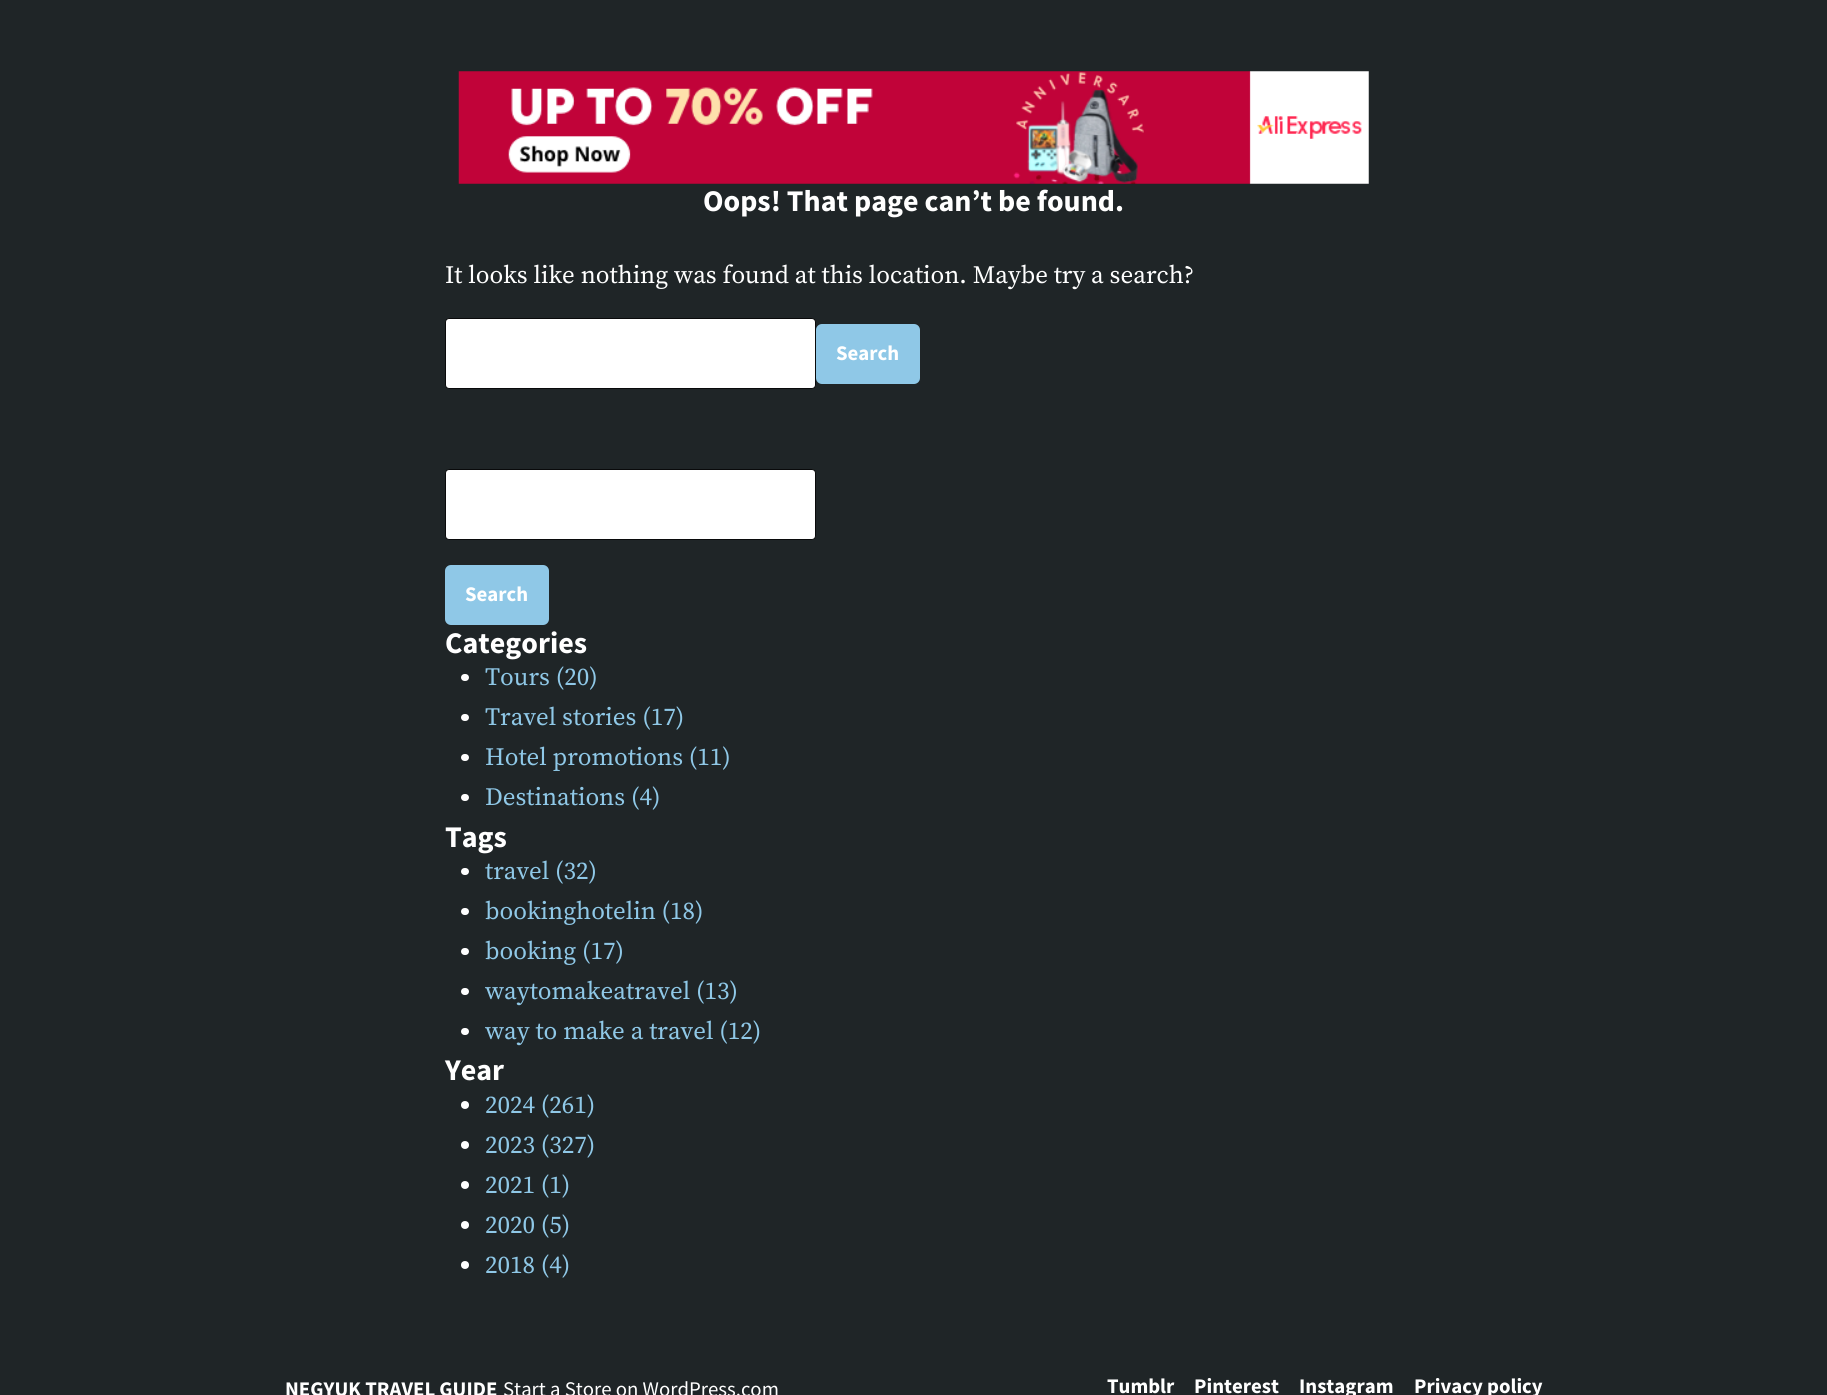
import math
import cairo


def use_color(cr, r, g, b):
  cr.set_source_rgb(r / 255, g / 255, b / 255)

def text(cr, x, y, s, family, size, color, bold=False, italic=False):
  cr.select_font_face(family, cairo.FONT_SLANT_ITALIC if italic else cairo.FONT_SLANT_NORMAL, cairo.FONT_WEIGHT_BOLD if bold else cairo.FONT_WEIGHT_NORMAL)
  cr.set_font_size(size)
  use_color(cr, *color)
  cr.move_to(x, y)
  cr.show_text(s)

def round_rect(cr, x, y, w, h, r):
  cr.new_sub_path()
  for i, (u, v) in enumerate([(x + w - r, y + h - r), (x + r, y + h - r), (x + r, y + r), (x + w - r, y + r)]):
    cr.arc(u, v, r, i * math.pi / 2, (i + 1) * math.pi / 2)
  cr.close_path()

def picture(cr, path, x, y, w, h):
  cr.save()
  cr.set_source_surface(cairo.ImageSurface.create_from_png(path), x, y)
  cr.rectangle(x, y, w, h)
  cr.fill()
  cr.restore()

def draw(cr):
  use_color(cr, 31, 37, 39)
  cr.paint()
  picture(cr, "img_01.png", 458, 71, 911, 113)
  use_color(cr, 255, 255, 255)
  round_rect(cr, 445.5, 318.5, 370, 70, 3.5)
  cr.fill_preserve()
  use_color(cr, 9, 10, 11)
  cr.set_line_width(1)
  cr.stroke()
  use_color(cr, 143, 200, 231)
  round_rect(cr, 816, 324, 104, 60, 6)
  cr.fill()
  use_color(cr, 255, 255, 255)
  round_rect(cr, 445.5, 469.5, 370, 70, 3.5)
  cr.fill_preserve()
  use_color(cr, 9, 10, 11)
  cr.stroke()
  use_color(cr, 143, 200, 231)
  round_rect(cr, 445, 565, 104, 60, 6)
  cr.fill()
  use_color(cr, 255, 255, 255)
  round_rect(cr, 461, 674, 8, 7, 3.5)
  cr.fill()
  round_rect(cr, 461, 714, 8, 7, 3.5)
  cr.fill()
  round_rect(cr, 461, 754, 8, 7, 3.5)
  cr.fill()
  round_rect(cr, 461, 794, 8, 7, 3.5)
  cr.fill()
  round_rect(cr, 461, 868, 8, 7, 3.5)
  cr.fill()
  round_rect(cr, 461, 908, 8, 7, 3.5)
  cr.fill()
  round_rect(cr, 461, 948, 8, 7, 3.5)
  cr.fill()
  round_rect(cr, 461, 988, 8, 7, 3.5)
  cr.fill()
  round_rect(cr, 461, 1028, 8, 7, 3.5)
  cr.fill()
  cr.arc(465, 1105, 4, 0, 2 * math.pi)
  cr.fill()
  cr.arc(465, 1145, 4, 0, 2 * math.pi)
  cr.fill()
  cr.arc(465, 1185, 4, 0, 2 * math.pi)
  cr.fill()
  cr.arc(465, 1225, 4, 0, 2 * math.pi)
  cr.fill()
  cr.arc(465, 1265, 4, 0, 2 * math.pi)
  cr.fill()
  text(cr, 703, 211, "Oops! That page can’t be found.", "Source Sans Pro", 30, (255, 255, 255), bold=True)
  text(cr, 445, 283, "It looks like nothing was found at this location. Maybe try a search?", "Source Serif Pro", 25, (255, 255, 255))
  text(cr, 836, 360, "Search", "Source Sans Pro", 20.8, (255, 255, 255), bold=True)
  text(cr, 465, 601, "Search", "Source Sans Pro", 20.8, (255, 255, 255), bold=True)
  text(cr, 445, 653, "Categories", "Source Sans Pro", 30, (255, 255, 255), bold=True)
  text(cr, 485, 685, "Tours (20)", "Source Serif Pro", 25, (143, 200, 231))
  text(cr, 485, 725, "Travel stories (17)", "Source Serif Pro", 25, (143, 200, 231))
  text(cr, 485, 765, "Hotel promotions (11)", "Source Serif Pro", 25, (143, 200, 231))
  text(cr, 485, 805, "Destinations (4)", "Source Serif Pro", 25, (143, 200, 231))
  text(cr, 445, 847, "Tags", "Source Sans Pro", 30, (255, 255, 255), bold=True)
  text(cr, 485, 879, "travel (32)", "Source Serif Pro", 25, (143, 200, 231))
  text(cr, 485, 919, "bookinghotelin (18)", "Source Serif Pro", 25, (143, 200, 231))
  text(cr, 485, 959, "booking (17)", "Source Serif Pro", 25, (143, 200, 231))
  text(cr, 485, 999, "waytomakeatravel (13)", "Source Serif Pro", 25, (143, 200, 231))
  text(cr, 485, 1039, "way to make a travel (12)", "Source Serif Pro", 25, (143, 200, 231))
  text(cr, 445, 1080, "Year", "Source Sans Pro", 30, (255, 255, 255), bold=True)
  text(cr, 485, 1113, "2024 (261)", "Source Serif Pro", 25, (143, 200, 231))
  text(cr, 485, 1153, "2023 (327)", "Source Serif Pro", 25, (143, 200, 231))
  text(cr, 485, 1193, "2021 (1)", "Source Serif Pro", 25, (143, 200, 231))
  text(cr, 485, 1233, "2020 (5)", "Source Serif Pro", 25, (143, 200, 231))
  text(cr, 485, 1273, "2018 (4)", "Source Serif Pro", 25, (143, 200, 231))
  text(cr, 285, 1396, "NEGYUK TRAVEL GUIDE", "Source Sans Pro", 20.8, (255, 255, 255), bold=True)
  text(cr, 503, 1396, "Start a Store on WordPress.com", "Source Sans Pro", 20.8, (255, 255, 255))
  text(cr, 1107, 1393, "Tumblr", "Source Sans Pro", 20.8, (255, 255, 255), bold=True)
  text(cr, 1194, 1393, "Pinterest", "Source Sans Pro", 20.8, (255, 255, 255), bold=True)
  text(cr, 1299, 1393, "Instagram", "Source Sans Pro", 20.8, (255, 255, 255), bold=True)
  text(cr, 1414, 1393, "Privacy policy", "Source Sans Pro", 20.8, (255, 255, 255), bold=True)


surface = cairo.ImageSurface(cairo.FORMAT_RGB24, 1827, 1395)
cr = cairo.Context(surface)
options = cairo.FontOptions()
options.set_hint_metrics(cairo.HINT_METRICS_OFF)
options.set_hint_style(cairo.HINT_STYLE_NONE)
cr.set_font_options(options)
cr.set_miter_limit(4)
draw(cr)
surface.write_to_png("out.png")
